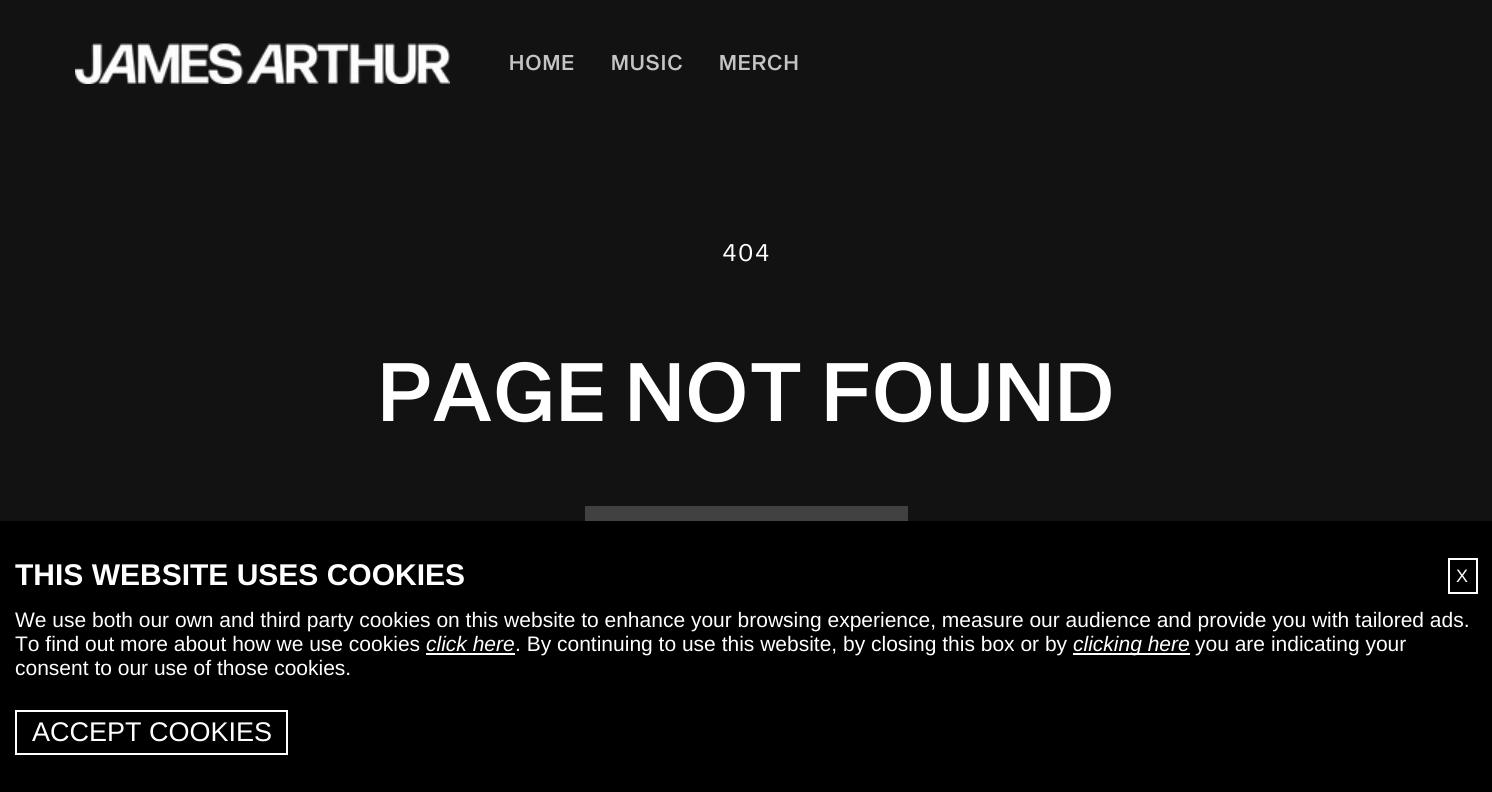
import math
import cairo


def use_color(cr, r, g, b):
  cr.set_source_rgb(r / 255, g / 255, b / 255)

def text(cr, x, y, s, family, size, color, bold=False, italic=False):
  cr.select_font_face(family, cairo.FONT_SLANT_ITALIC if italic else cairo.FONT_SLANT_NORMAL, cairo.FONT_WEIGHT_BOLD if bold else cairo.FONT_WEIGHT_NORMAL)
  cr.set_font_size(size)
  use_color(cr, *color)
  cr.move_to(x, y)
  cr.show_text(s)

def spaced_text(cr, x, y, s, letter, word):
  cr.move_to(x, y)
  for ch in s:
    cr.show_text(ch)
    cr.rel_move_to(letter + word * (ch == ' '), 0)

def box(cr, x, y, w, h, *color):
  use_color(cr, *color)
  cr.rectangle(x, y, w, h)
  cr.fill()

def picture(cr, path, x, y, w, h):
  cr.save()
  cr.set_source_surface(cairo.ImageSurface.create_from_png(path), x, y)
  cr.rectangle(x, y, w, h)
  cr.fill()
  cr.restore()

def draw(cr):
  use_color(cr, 18, 18, 18)
  cr.paint()
  picture(cr, "img_01.png", 75, 43, 375, 41)
  box(cr, 585, 506, 323, 15, 65, 65, 65)
  box(cr, 0, 521, 1492, 271, 0, 0, 0)
  cr.rectangle(1449, 559, 28, 34)
  use_color(cr, 255, 255, 255)
  cr.stroke()
  box(cr, 426, 653, 89, 2, 255, 255, 255)
  box(cr, 1073, 653, 117, 2, 255, 255, 255)
  cr.rectangle(16, 711, 271, 43)
  cr.stroke()
  cr.select_font_face("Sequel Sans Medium")
  cr.set_font_size(21)
  use_color(cr, 196, 196, 196)
  spaced_text(cr, 509, 70, "HOME", 1, 0)
  spaced_text(cr, 611, 70, "MUSIC", 1, 0)
  spaced_text(cr, 719, 70, "MERCH", 1, 0)
  cr.select_font_face("Sequel Sans")
  cr.set_font_size(24)
  use_color(cr, 255, 255, 255)
  spaced_text(cr, 722, 261, "404", 1, 0)
  cr.select_font_face("Sequel Sans Medium")
  cr.set_font_size(81)
  spaced_text(cr, 378, 421, "PAGE NOT FOUND", 1.25, 0)
  text(cr, 15, 585, "THIS WEBSITE USES COOKIES", "Liberation Sans", 30, (255, 255, 255), bold=True)
  text(cr, 1456, 582, "X", "Liberation Sans", 18, (255, 255, 255))
  text(cr, 15, 627, "We use both our own and third party cookies on this website to enhance your browsing experience, measure our audience and provide you with tailored ads.", "Liberation Sans", 21, (255, 255, 255))
  text(cr, 15, 651, "To find out more about how we use cookies", "Liberation Sans", 21, (255, 255, 255))
  text(cr, 426, 651, "click here", "Liberation Sans", 21, (255, 255, 255), italic=True)
  text(cr, 515, 651, ". By continuing to use this website, by closing this box or by", "Liberation Sans", 21, (255, 255, 255))
  text(cr, 1073, 651, "clicking here", "Liberation Sans", 21, (255, 255, 255), italic=True)
  text(cr, 1195, 651, "you are indicating your", "Liberation Sans", 21, (255, 255, 255))
  text(cr, 15, 675, "consent to our use of those cookies.", "Liberation Sans", 21, (255, 255, 255))
  text(cr, 32, 741, "ACCEPT COOKIES", "Liberation Sans", 27, (255, 255, 255))


surface = cairo.ImageSurface(cairo.FORMAT_RGB24, 1492, 792)
cr = cairo.Context(surface)
options = cairo.FontOptions()
options.set_hint_metrics(cairo.HINT_METRICS_OFF)
options.set_hint_style(cairo.HINT_STYLE_NONE)
cr.set_font_options(options)
cr.set_miter_limit(4)
draw(cr)
surface.write_to_png("out.png")
